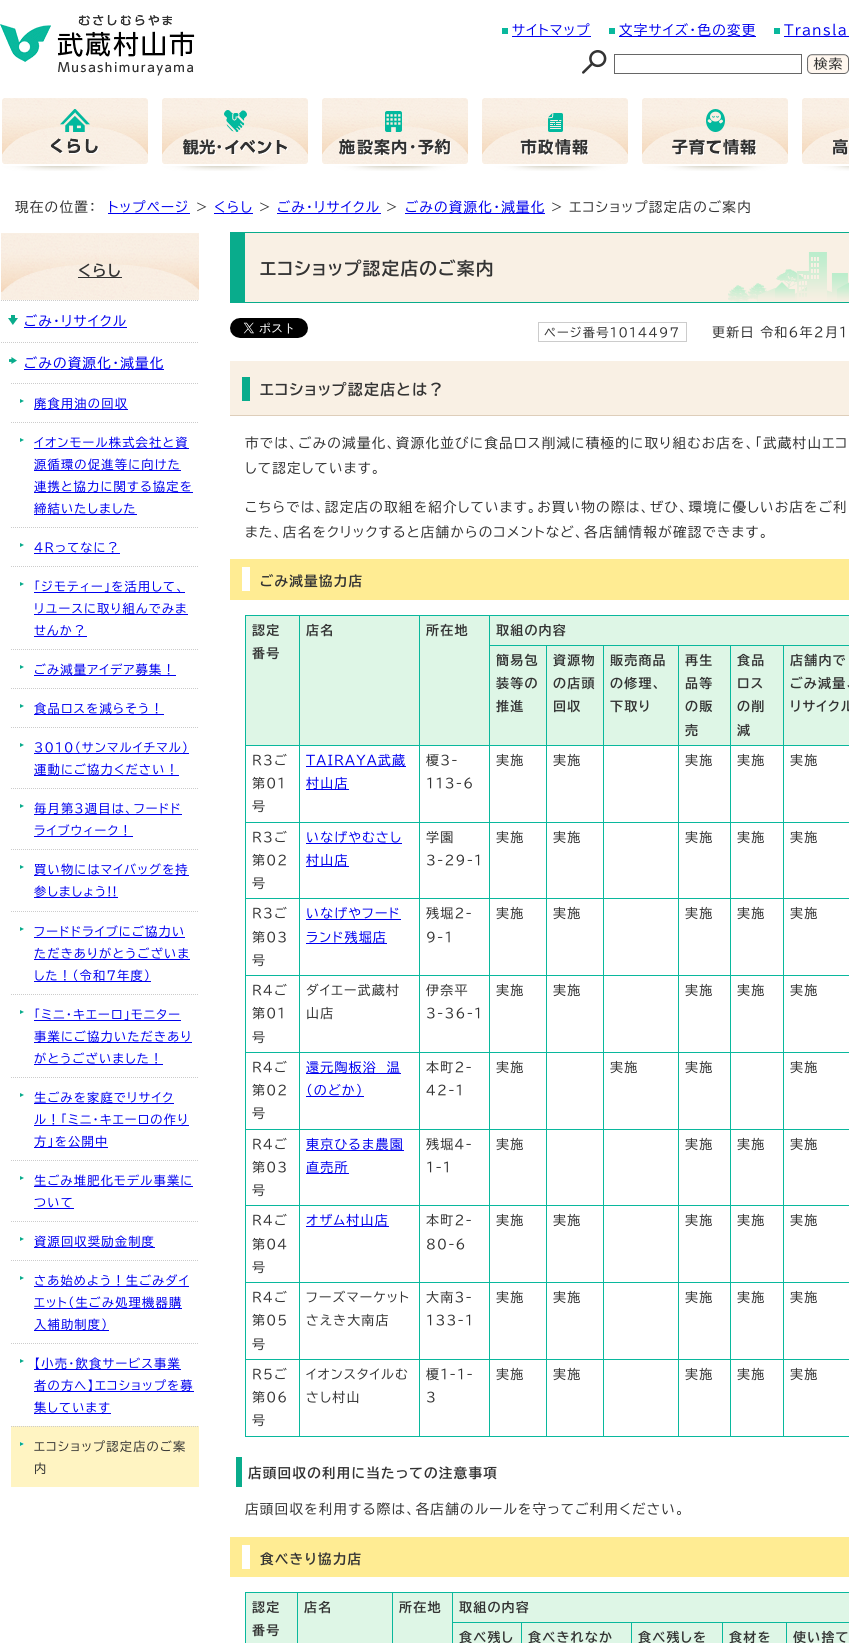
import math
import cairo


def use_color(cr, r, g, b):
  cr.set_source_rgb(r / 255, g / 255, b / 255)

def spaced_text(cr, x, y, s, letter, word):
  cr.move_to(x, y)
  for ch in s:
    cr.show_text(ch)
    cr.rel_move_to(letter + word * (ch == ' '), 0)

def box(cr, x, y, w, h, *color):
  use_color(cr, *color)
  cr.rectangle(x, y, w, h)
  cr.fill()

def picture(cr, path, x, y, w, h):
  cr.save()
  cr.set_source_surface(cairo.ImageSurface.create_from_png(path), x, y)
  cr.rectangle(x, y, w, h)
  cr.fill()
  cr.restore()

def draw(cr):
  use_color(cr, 255, 255, 255)
  cr.paint()
  picture(cr, "img_01.png", 0, 15, 195, 61)
  box(cr, 502, 28, 6, 6, 9, 184, 157)
  box(cr, 512, 36, 79, 1, 0, 0, 238)
  box(cr, 609, 28, 6, 6, 9, 184, 157)
  box(cr, 619, 36, 137, 1, 0, 0, 238)
  box(cr, 774, 28, 6, 6, 9, 184, 157)
  box(cr, 784, 36, 65, 1, 0, 0, 238)
  picture(cr, "img_02.png", 582, 50, 25, 24)
  cr.rectangle(614.5, 54.5, 187, 19)
  use_color(cr, 102, 102, 102)
  cr.set_line_width(1)
  cr.stroke()
  picture(cr, "img_03.png", 807, 54, 42, 20)
  picture(cr, "img_04.png", 2, 98, 146, 73)
  picture(cr, "img_05.png", 162, 98, 146, 73)
  picture(cr, "img_06.png", 322, 98, 146, 73)
  picture(cr, "img_07.png", 482, 98, 146, 73)
  picture(cr, "img_08.png", 642, 98, 146, 73)
  picture(cr, "img_09.png", 802, 98, 47, 73)
  box(cr, 108, 213, 82, 1, 0, 0, 238)
  box(cr, 214, 213, 39, 1, 0, 0, 238)
  box(cr, 277, 213, 104, 1, 0, 0, 238)
  box(cr, 405, 213, 140, 1, 0, 0, 238)
  box(cr, 1, 233, 198, 67, 249, 239, 227)
  picture(cr, "img_10.png", 1, 234, 198, 65)
  box(cr, 78, 277, 44, 1, 51, 51, 51)
  picture(cr, "img_11.png", 8, 315, 10, 10)
  cr.new_path()
  cr.move_to(1, 300.5)
  cr.line_to(199, 300.5)
  use_color(cr, 204, 204, 204)
  cr.set_dash([1, 1])
  cr.stroke()
  box(cr, 24, 327, 103, 1, 0, 0, 238)
  picture(cr, "img_12.png", 9, 357, 8, 7)
  cr.new_path()
  cr.move_to(1, 342.5)
  cr.line_to(199, 342.5)
  use_color(cr, 204, 204, 204)
  cr.stroke()
  box(cr, 24, 369, 140, 1, 0, 0, 238)
  picture(cr, "img_13.png", 20, 399, 4, 4)
  cr.new_path()
  cr.move_to(11, 383.5)
  cr.line_to(199, 383.5)
  use_color(cr, 204, 204, 204)
  cr.stroke()
  box(cr, 34, 409, 94, 1, 0, 0, 238)
  picture(cr, "img_13.png", 20, 438, 4, 4)
  cr.new_path()
  cr.move_to(11, 422.5)
  cr.line_to(199, 422.5)
  use_color(cr, 204, 204, 204)
  cr.stroke()
  box(cr, 34, 448, 155, 1, 0, 0, 238)
  box(cr, 34, 470, 147, 1, 0, 0, 238)
  box(cr, 34, 492, 159, 1, 0, 0, 238)
  box(cr, 34, 514, 103, 1, 0, 0, 238)
  picture(cr, "img_13.png", 20, 543, 4, 4)
  cr.new_path()
  cr.move_to(11, 527.5)
  cr.line_to(199, 527.5)
  use_color(cr, 204, 204, 204)
  cr.stroke()
  box(cr, 34, 553, 86, 1, 0, 0, 238)
  picture(cr, "img_13.png", 20, 582, 4, 4)
  cr.new_path()
  cr.move_to(11, 566.5)
  cr.line_to(199, 566.5)
  use_color(cr, 204, 204, 204)
  cr.stroke()
  box(cr, 34, 592, 151, 1, 0, 0, 238)
  box(cr, 34, 614, 154, 1, 0, 0, 238)
  box(cr, 34, 636, 53, 1, 0, 0, 238)
  picture(cr, "img_13.png", 20, 665, 4, 4)
  cr.new_path()
  cr.move_to(11, 649.5)
  cr.line_to(199, 649.5)
  use_color(cr, 204, 204, 204)
  cr.stroke()
  box(cr, 34, 675, 142, 1, 0, 0, 238)
  picture(cr, "img_13.png", 20, 704, 4, 4)
  cr.new_path()
  cr.move_to(11, 688.5)
  cr.line_to(199, 688.5)
  use_color(cr, 204, 204, 204)
  cr.stroke()
  box(cr, 34, 714, 130, 1, 0, 0, 238)
  picture(cr, "img_13.png", 20, 743, 4, 4)
  cr.new_path()
  cr.move_to(11, 727.5)
  cr.line_to(199, 727.5)
  use_color(cr, 204, 204, 204)
  cr.stroke()
  box(cr, 34, 753, 155, 1, 0, 0, 238)
  box(cr, 34, 775, 145, 1, 0, 0, 238)
  picture(cr, "img_13.png", 20, 804, 4, 4)
  cr.new_path()
  cr.move_to(11, 788.5)
  cr.line_to(199, 788.5)
  use_color(cr, 204, 204, 204)
  cr.stroke()
  box(cr, 34, 814, 148, 1, 0, 0, 238)
  box(cr, 34, 836, 99, 1, 0, 0, 238)
  picture(cr, "img_13.png", 20, 865, 4, 4)
  cr.new_path()
  cr.move_to(11, 849.5)
  cr.line_to(199, 849.5)
  use_color(cr, 204, 204, 204)
  cr.stroke()
  box(cr, 34, 875, 155, 1, 0, 0, 238)
  box(cr, 34, 897, 84, 1, 0, 0, 238)
  picture(cr, "img_13.png", 20, 927, 4, 4)
  cr.new_path()
  cr.move_to(11, 911.5)
  cr.line_to(199, 911.5)
  use_color(cr, 204, 204, 204)
  cr.stroke()
  box(cr, 34, 937, 151, 1, 0, 0, 238)
  box(cr, 34, 959, 156, 1, 0, 0, 238)
  box(cr, 34, 981, 117, 1, 0, 0, 238)
  picture(cr, "img_13.png", 20, 1010, 4, 4)
  cr.new_path()
  cr.move_to(11, 994.5)
  cr.line_to(199, 994.5)
  use_color(cr, 204, 204, 204)
  cr.stroke()
  box(cr, 34, 1020, 147, 1, 0, 0, 238)
  box(cr, 34, 1042, 158, 1, 0, 0, 238)
  box(cr, 34, 1064, 129, 1, 0, 0, 238)
  picture(cr, "img_13.png", 20, 1093, 4, 4)
  cr.new_path()
  cr.move_to(11, 1077.5)
  cr.line_to(199, 1077.5)
  use_color(cr, 204, 204, 204)
  cr.stroke()
  box(cr, 34, 1103, 140, 1, 0, 0, 238)
  box(cr, 34, 1125, 155, 1, 0, 0, 238)
  box(cr, 34, 1147, 74, 1, 0, 0, 238)
  picture(cr, "img_13.png", 20, 1176, 4, 4)
  cr.new_path()
  cr.move_to(11, 1160.5)
  cr.line_to(199, 1160.5)
  use_color(cr, 204, 204, 204)
  cr.stroke()
  box(cr, 34, 1186, 159, 1, 0, 0, 238)
  box(cr, 34, 1208, 40, 1, 0, 0, 238)
  picture(cr, "img_13.png", 20, 1237, 4, 4)
  cr.new_path()
  cr.move_to(11, 1221.5)
  cr.line_to(199, 1221.5)
  use_color(cr, 204, 204, 204)
  cr.stroke()
  box(cr, 34, 1247, 121, 1, 0, 0, 238)
  picture(cr, "img_13.png", 20, 1276, 4, 4)
  cr.new_path()
  cr.move_to(11, 1260.5)
  cr.line_to(199, 1260.5)
  use_color(cr, 204, 204, 204)
  cr.stroke()
  box(cr, 34, 1286, 155, 1, 0, 0, 238)
  box(cr, 34, 1308, 148, 1, 0, 0, 238)
  box(cr, 34, 1330, 75, 1, 0, 0, 238)
  picture(cr, "img_13.png", 20, 1359, 4, 4)
  cr.new_path()
  cr.move_to(11, 1343.5)
  cr.line_to(199, 1343.5)
  use_color(cr, 204, 204, 204)
  cr.stroke()
  box(cr, 34, 1369, 147, 1, 0, 0, 238)
  box(cr, 34, 1391, 160, 1, 0, 0, 238)
  box(cr, 34, 1413, 77, 1, 0, 0, 238)
  box(cr, 11, 1426, 188, 61, 255, 244, 194)
  picture(cr, "img_14.png", 20, 1442, 4, 4)
  cr.new_path()
  cr.move_to(11, 1426.5)
  cr.line_to(199, 1426.5)
  use_color(cr, 204, 204, 204)
  cr.stroke()
  box(cr, 245, 233, 604, 69, 249, 240, 228)
  picture(cr, "img_15.png", 728, 252, 121, 50)
  box(cr, 245, 232, 604, 1, 9, 172, 140)
  box(cr, 245, 302, 604, 1, 9, 172, 140)
  box(cr, 230, 232, 15, 71, 9, 172, 140)
  picture(cr, "img_16.png", 230, 318, 78, 20)
  cr.rectangle(538.5, 322.5, 148, 19)
  use_color(cr, 204, 204, 204)
  cr.set_dash([])
  cr.stroke()
  box(cr, 230, 361, 619, 54, 249, 240, 228)
  box(cr, 242, 377, 8, 24, 9, 172, 140)
  box(cr, 230, 415, 619, 1, 222, 206, 186)
  box(cr, 230, 559, 619, 41, 255, 236, 147)
  box(cr, 242, 567, 8, 24, 255, 255, 255)
  box(cr, 246, 616, 53, 129, 222, 246, 230)
  box(cr, 489, 615, 360, 1, 9, 184, 157)
  box(cr, 783, 645, 66, 1, 9, 184, 157)
  box(cr, 783, 745, 66, 1, 9, 184, 157)
  box(cr, 783, 822, 66, 1, 9, 184, 157)
  box(cr, 783, 898, 66, 1, 9, 184, 157)
  box(cr, 783, 975, 66, 1, 9, 184, 157)
  box(cr, 783, 1052, 66, 1, 9, 184, 157)
  box(cr, 783, 1129, 66, 1, 9, 184, 157)
  box(cr, 783, 1205, 66, 1, 9, 184, 157)
  box(cr, 783, 1282, 66, 1, 9, 184, 157)
  box(cr, 783, 1359, 66, 1, 9, 184, 157)
  box(cr, 783, 1436, 66, 1, 9, 184, 157)
  box(cr, 783, 1359, 1, 78, 9, 184, 157)
  box(cr, 730, 1359, 54, 1, 9, 184, 157)
  box(cr, 783, 1282, 1, 78, 9, 184, 157)
  box(cr, 730, 1282, 54, 1, 9, 184, 157)
  box(cr, 783, 1205, 1, 78, 9, 184, 157)
  box(cr, 730, 1205, 54, 1, 9, 184, 157)
  box(cr, 783, 1129, 1, 77, 9, 184, 157)
  box(cr, 730, 1129, 54, 1, 9, 184, 157)
  box(cr, 783, 1052, 1, 78, 9, 184, 157)
  box(cr, 730, 1052, 54, 1, 9, 184, 157)
  box(cr, 783, 975, 1, 78, 9, 184, 157)
  box(cr, 730, 975, 54, 1, 9, 184, 157)
  box(cr, 783, 898, 1, 78, 9, 184, 157)
  box(cr, 730, 898, 54, 1, 9, 184, 157)
  box(cr, 783, 822, 1, 77, 9, 184, 157)
  box(cr, 730, 822, 54, 1, 9, 184, 157)
  box(cr, 783, 745, 1, 78, 9, 184, 157)
  box(cr, 730, 745, 54, 1, 9, 184, 157)
  box(cr, 783, 645, 1, 101, 9, 184, 157)
  box(cr, 730, 645, 54, 1, 9, 184, 157)
  box(cr, 730, 1436, 54, 1, 9, 184, 157)
  box(cr, 730, 1359, 1, 78, 9, 184, 157)
  box(cr, 678, 1359, 53, 1, 9, 184, 157)
  box(cr, 730, 1282, 1, 78, 9, 184, 157)
  box(cr, 678, 1282, 53, 1, 9, 184, 157)
  box(cr, 730, 1205, 1, 78, 9, 184, 157)
  box(cr, 678, 1205, 53, 1, 9, 184, 157)
  box(cr, 730, 1129, 1, 77, 9, 184, 157)
  box(cr, 678, 1129, 53, 1, 9, 184, 157)
  box(cr, 730, 1052, 1, 78, 9, 184, 157)
  box(cr, 678, 1052, 53, 1, 9, 184, 157)
  box(cr, 730, 975, 1, 78, 9, 184, 157)
  box(cr, 678, 975, 53, 1, 9, 184, 157)
  box(cr, 730, 898, 1, 78, 9, 184, 157)
  box(cr, 678, 898, 53, 1, 9, 184, 157)
  box(cr, 730, 822, 1, 77, 9, 184, 157)
  box(cr, 678, 822, 53, 1, 9, 184, 157)
  box(cr, 730, 745, 1, 78, 9, 184, 157)
  box(cr, 678, 745, 53, 1, 9, 184, 157)
  box(cr, 730, 645, 1, 101, 9, 184, 157)
  box(cr, 678, 645, 53, 1, 9, 184, 157)
  box(cr, 678, 1436, 53, 1, 9, 184, 157)
  box(cr, 678, 1359, 1, 78, 9, 184, 157)
  box(cr, 603, 1359, 76, 1, 9, 184, 157)
  box(cr, 678, 1282, 1, 78, 9, 184, 157)
  box(cr, 603, 1282, 76, 1, 9, 184, 157)
  box(cr, 678, 1205, 1, 78, 9, 184, 157)
  box(cr, 603, 1205, 76, 1, 9, 184, 157)
  box(cr, 678, 1129, 1, 77, 9, 184, 157)
  box(cr, 603, 1129, 76, 1, 9, 184, 157)
  box(cr, 678, 1052, 1, 78, 9, 184, 157)
  box(cr, 603, 1052, 76, 1, 9, 184, 157)
  box(cr, 678, 975, 1, 78, 9, 184, 157)
  box(cr, 603, 975, 76, 1, 9, 184, 157)
  box(cr, 678, 898, 1, 78, 9, 184, 157)
  box(cr, 603, 898, 76, 1, 9, 184, 157)
  box(cr, 678, 822, 1, 77, 9, 184, 157)
  box(cr, 603, 822, 76, 1, 9, 184, 157)
  box(cr, 678, 745, 1, 78, 9, 184, 157)
  box(cr, 603, 745, 76, 1, 9, 184, 157)
  box(cr, 678, 645, 1, 101, 9, 184, 157)
  box(cr, 603, 645, 76, 1, 9, 184, 157)
  box(cr, 603, 1436, 76, 1, 9, 184, 157)
  box(cr, 603, 1359, 1, 78, 9, 184, 157)
  box(cr, 546, 1359, 58, 1, 9, 184, 157)
  box(cr, 603, 1282, 1, 78, 9, 184, 157)
  box(cr, 546, 1282, 58, 1, 9, 184, 157)
  box(cr, 603, 1205, 1, 78, 9, 184, 157)
  box(cr, 546, 1205, 58, 1, 9, 184, 157)
  box(cr, 603, 1129, 1, 77, 9, 184, 157)
  box(cr, 546, 1129, 58, 1, 9, 184, 157)
  box(cr, 603, 1052, 1, 78, 9, 184, 157)
  box(cr, 546, 1052, 58, 1, 9, 184, 157)
  box(cr, 603, 975, 1, 78, 9, 184, 157)
  box(cr, 546, 975, 58, 1, 9, 184, 157)
  box(cr, 603, 898, 1, 78, 9, 184, 157)
  box(cr, 546, 898, 58, 1, 9, 184, 157)
  box(cr, 603, 822, 1, 77, 9, 184, 157)
  box(cr, 546, 822, 58, 1, 9, 184, 157)
  box(cr, 603, 745, 1, 78, 9, 184, 157)
  box(cr, 546, 745, 58, 1, 9, 184, 157)
  box(cr, 603, 645, 1, 101, 9, 184, 157)
  box(cr, 546, 645, 58, 1, 9, 184, 157)
  box(cr, 546, 1436, 58, 1, 9, 184, 157)
  box(cr, 546, 1359, 1, 78, 9, 184, 157)
  box(cr, 489, 1359, 58, 1, 9, 184, 157)
  box(cr, 546, 1282, 1, 78, 9, 184, 157)
  box(cr, 489, 1282, 58, 1, 9, 184, 157)
  box(cr, 546, 1205, 1, 78, 9, 184, 157)
  box(cr, 489, 1205, 58, 1, 9, 184, 157)
  box(cr, 546, 1129, 1, 77, 9, 184, 157)
  box(cr, 489, 1129, 58, 1, 9, 184, 157)
  box(cr, 546, 1052, 1, 78, 9, 184, 157)
  box(cr, 489, 1052, 58, 1, 9, 184, 157)
  box(cr, 546, 975, 1, 78, 9, 184, 157)
  box(cr, 489, 975, 58, 1, 9, 184, 157)
  box(cr, 546, 898, 1, 78, 9, 184, 157)
  box(cr, 489, 898, 58, 1, 9, 184, 157)
  box(cr, 546, 822, 1, 77, 9, 184, 157)
  box(cr, 489, 822, 58, 1, 9, 184, 157)
  box(cr, 546, 745, 1, 78, 9, 184, 157)
  box(cr, 489, 745, 58, 1, 9, 184, 157)
  box(cr, 546, 645, 1, 101, 9, 184, 157)
  box(cr, 489, 645, 58, 1, 9, 184, 157)
  box(cr, 489, 1436, 58, 1, 9, 184, 157)
  box(cr, 489, 1359, 1, 78, 9, 184, 157)
  box(cr, 419, 1359, 71, 1, 9, 184, 157)
  box(cr, 489, 1282, 1, 78, 9, 184, 157)
  box(cr, 419, 1282, 71, 1, 9, 184, 157)
  box(cr, 489, 1205, 1, 78, 9, 184, 157)
  box(cr, 419, 1205, 71, 1, 9, 184, 157)
  box(cr, 489, 1129, 1, 77, 9, 184, 157)
  box(cr, 419, 1129, 71, 1, 9, 184, 157)
  box(cr, 489, 1052, 1, 78, 9, 184, 157)
  box(cr, 419, 1052, 71, 1, 9, 184, 157)
  box(cr, 489, 975, 1, 78, 9, 184, 157)
  box(cr, 419, 975, 71, 1, 9, 184, 157)
  box(cr, 489, 898, 1, 78, 9, 184, 157)
  box(cr, 419, 898, 71, 1, 9, 184, 157)
  box(cr, 489, 822, 1, 77, 9, 184, 157)
  box(cr, 419, 822, 71, 1, 9, 184, 157)
  box(cr, 489, 745, 1, 78, 9, 184, 157)
  box(cr, 419, 745, 71, 1, 9, 184, 157)
  box(cr, 489, 645, 1, 101, 9, 184, 157)
  box(cr, 489, 615, 1, 31, 9, 184, 157)
  box(cr, 419, 615, 71, 1, 9, 184, 157)
  box(cr, 419, 1436, 71, 1, 9, 184, 157)
  box(cr, 419, 1359, 1, 78, 9, 184, 157)
  box(cr, 299, 1359, 121, 1, 9, 184, 157)
  box(cr, 419, 1282, 1, 78, 9, 184, 157)
  box(cr, 299, 1282, 121, 1, 9, 184, 157)
  box(cr, 419, 1205, 1, 78, 9, 184, 157)
  box(cr, 299, 1205, 121, 1, 9, 184, 157)
  box(cr, 419, 1129, 1, 77, 9, 184, 157)
  box(cr, 299, 1129, 121, 1, 9, 184, 157)
  box(cr, 419, 1052, 1, 78, 9, 184, 157)
  box(cr, 299, 1052, 121, 1, 9, 184, 157)
  box(cr, 419, 975, 1, 78, 9, 184, 157)
  box(cr, 299, 975, 121, 1, 9, 184, 157)
  box(cr, 419, 898, 1, 78, 9, 184, 157)
  box(cr, 299, 898, 121, 1, 9, 184, 157)
  box(cr, 419, 822, 1, 77, 9, 184, 157)
  box(cr, 299, 822, 121, 1, 9, 184, 157)
  box(cr, 419, 745, 1, 78, 9, 184, 157)
  box(cr, 299, 745, 121, 1, 9, 184, 157)
  box(cr, 419, 615, 1, 131, 9, 184, 157)
  box(cr, 299, 615, 121, 1, 9, 184, 157)
  box(cr, 299, 1436, 121, 1, 9, 184, 157)
  box(cr, 299, 1359, 1, 78, 9, 184, 157)
  box(cr, 245, 1359, 55, 1, 9, 184, 157)
  box(cr, 299, 1282, 1, 78, 9, 184, 157)
  box(cr, 245, 1282, 55, 1, 9, 184, 157)
  box(cr, 299, 1205, 1, 78, 9, 184, 157)
  box(cr, 245, 1205, 55, 1, 9, 184, 157)
  box(cr, 299, 1129, 1, 77, 9, 184, 157)
  box(cr, 245, 1129, 55, 1, 9, 184, 157)
  box(cr, 299, 1052, 1, 78, 9, 184, 157)
  box(cr, 245, 1052, 55, 1, 9, 184, 157)
  box(cr, 299, 975, 1, 78, 9, 184, 157)
  box(cr, 245, 975, 55, 1, 9, 184, 157)
  box(cr, 299, 898, 1, 78, 9, 184, 157)
  box(cr, 245, 898, 55, 1, 9, 184, 157)
  box(cr, 299, 822, 1, 77, 9, 184, 157)
  box(cr, 245, 822, 55, 1, 9, 184, 157)
  box(cr, 299, 745, 1, 78, 9, 184, 157)
  box(cr, 245, 745, 55, 1, 9, 184, 157)
  box(cr, 299, 615, 1, 131, 9, 184, 157)
  box(cr, 245, 615, 55, 1, 9, 184, 157)
  box(cr, 245, 1436, 55, 1, 9, 184, 157)
  box(cr, 245, 1359, 1, 78, 9, 184, 157)
  box(cr, 245, 1282, 1, 78, 9, 184, 157)
  box(cr, 245, 1205, 1, 78, 9, 184, 157)
  box(cr, 245, 1129, 1, 77, 9, 184, 157)
  box(cr, 245, 1052, 1, 78, 9, 184, 157)
  box(cr, 245, 975, 1, 78, 9, 184, 157)
  box(cr, 245, 898, 1, 78, 9, 184, 157)
  box(cr, 245, 822, 1, 77, 9, 184, 157)
  box(cr, 245, 745, 1, 78, 9, 184, 157)
  box(cr, 245, 615, 1, 131, 9, 184, 157)
  box(cr, 300, 616, 119, 129, 222, 246, 230)
  box(cr, 420, 616, 69, 129, 222, 246, 230)
  box(cr, 490, 616, 359, 29, 222, 246, 230)
  box(cr, 490, 646, 56, 99, 222, 246, 230)
  box(cr, 547, 646, 56, 99, 222, 246, 230)
  box(cr, 604, 646, 74, 99, 222, 246, 230)
  box(cr, 679, 646, 51, 99, 222, 246, 230)
  box(cr, 731, 646, 52, 99, 222, 246, 230)
  box(cr, 784, 646, 65, 99, 222, 246, 230)
  box(cr, 306, 766, 100, 1, 0, 0, 238)
  box(cr, 306, 789, 43, 1, 0, 0, 238)
  box(cr, 306, 843, 96, 1, 0, 0, 238)
  box(cr, 306, 866, 43, 1, 0, 0, 238)
  box(cr, 306, 919, 95, 1, 0, 0, 238)
  box(cr, 306, 943, 81, 1, 0, 0, 238)
  box(cr, 306, 1073, 95, 1, 0, 0, 238)
  box(cr, 306, 1096, 58, 1, 0, 0, 238)
  box(cr, 306, 1150, 98, 1, 0, 0, 238)
  box(cr, 306, 1173, 43, 1, 0, 0, 238)
  box(cr, 306, 1226, 83, 1, 0, 0, 238)
  box(cr, 236, 1457, 6, 30, 9, 172, 140)
  box(cr, 230, 1537, 619, 40, 255, 236, 147)
  box(cr, 242, 1545, 8, 24, 255, 255, 255)
  box(cr, 246, 1593, 51, 50, 222, 246, 230)
  box(cr, 452, 1592, 397, 1, 9, 184, 157)
  box(cr, 786, 1622, 63, 1, 9, 184, 157)
  box(cr, 786, 1622, 1, 21, 9, 184, 157)
  box(cr, 722, 1622, 65, 1, 9, 184, 157)
  box(cr, 722, 1622, 1, 21, 9, 184, 157)
  box(cr, 631, 1622, 92, 1, 9, 184, 157)
  box(cr, 631, 1622, 1, 21, 9, 184, 157)
  box(cr, 521, 1622, 111, 1, 9, 184, 157)
  box(cr, 521, 1622, 1, 21, 9, 184, 157)
  box(cr, 452, 1622, 70, 1, 9, 184, 157)
  box(cr, 452, 1622, 1, 21, 9, 184, 157)
  box(cr, 452, 1592, 1, 31, 9, 184, 157)
  box(cr, 392, 1592, 61, 1, 9, 184, 157)
  box(cr, 392, 1592, 1, 51, 9, 184, 157)
  box(cr, 297, 1592, 96, 1, 9, 184, 157)
  box(cr, 297, 1592, 1, 51, 9, 184, 157)
  box(cr, 245, 1592, 53, 1, 9, 184, 157)
  box(cr, 245, 1592, 1, 51, 9, 184, 157)
  box(cr, 298, 1593, 94, 50, 222, 246, 230)
  box(cr, 393, 1593, 59, 50, 222, 246, 230)
  box(cr, 453, 1593, 396, 29, 222, 246, 230)
  box(cr, 453, 1623, 68, 20, 222, 246, 230)
  box(cr, 522, 1623, 109, 20, 222, 246, 230)
  box(cr, 632, 1623, 90, 20, 222, 246, 230)
  box(cr, 723, 1623, 63, 20, 222, 246, 230)
  box(cr, 787, 1623, 62, 20, 222, 246, 230)
  cr.select_font_face("BIZ UDPGothic")
  cr.set_font_size(13.6)
  use_color(cr, 0, 0, 238)
  spaced_text(cr, 512, 35, "サイトマップ", 1.2, 0)
  spaced_text(cr, 619, 35, "文字サイズ・色の変更", 1.2, 0)
  spaced_text(cr, 784, 35, "Transla", 1.2, 0)
  use_color(cr, 51, 51, 51)
  spaced_text(cr, 15, 212, "現在の位置：", 1.2, 0)
  use_color(cr, 0, 0, 238)
  spaced_text(cr, 108, 212, "トップページ", 1.2, 0)
  use_color(cr, 51, 51, 51)
  spaced_text(cr, 196, 212, ">", 1.2, 0)
  use_color(cr, 0, 0, 238)
  spaced_text(cr, 214, 212, "くらし", 1.2, 0)
  use_color(cr, 51, 51, 51)
  spaced_text(cr, 259, 212, ">", 1.2, 0)
  use_color(cr, 0, 0, 238)
  spaced_text(cr, 277, 212, "ごみ・リサイクル", 1.2, 0)
  use_color(cr, 51, 51, 51)
  spaced_text(cr, 386, 212, ">", 1.2, 0)
  use_color(cr, 0, 0, 238)
  spaced_text(cr, 405, 212, "ごみの資源化・減量化", 1.2, 0)
  use_color(cr, 51, 51, 51)
  spaced_text(cr, 551, 212, "> エコショップ認定店のご案内", 1.2, 0)
  cr.select_font_face("BIZ UDPGothic", cairo.FONT_SLANT_NORMAL, cairo.FONT_WEIGHT_BOLD)
  cr.set_font_size(15)
  spaced_text(cr, 78, 276, "くらし", 1.2, 0)
  cr.select_font_face("BIZ UDPGothic")
  cr.set_font_size(13.6)
  use_color(cr, 0, 0, 238)
  spaced_text(cr, 24, 326, "ごみ・リサイクル", 1.2, 0)
  spaced_text(cr, 24, 368, "ごみの資源化・減量化", 1.2, 0)
  cr.set_font_size(12.25)
  spaced_text(cr, 34, 408, "廃食用油の回収", 1.2, 0)
  spaced_text(cr, 34, 447, "イオンモール株式会社と資", 1.2, 0)
  spaced_text(cr, 34, 469, "源循環の促進等に向けた", 1.2, 0)
  spaced_text(cr, 34, 491, "連携と協力に関する協定を", 1.2, 0)
  spaced_text(cr, 34, 513, "締結いたしました", 1.2, 0)
  spaced_text(cr, 34, 552, "4Rってなに？", 1.2, 0)
  spaced_text(cr, 34, 591, "「ジモティー」を活用して、", 1.2, 0)
  spaced_text(cr, 34, 613, "リユースに取り組んでみま", 1.2, 0)
  spaced_text(cr, 34, 635, "せんか？", 1.2, 0)
  spaced_text(cr, 34, 674, "ごみ減量アイデア募集！", 1.2, 0)
  spaced_text(cr, 34, 713, "食品ロスを減らそう！", 1.2, 0)
  spaced_text(cr, 34, 752, "3010（サンマルイチマル）", 1.2, 0)
  spaced_text(cr, 34, 774, "運動にご協力ください！", 1.2, 0)
  spaced_text(cr, 34, 813, "毎月第3週目は、フードド", 1.2, 0)
  spaced_text(cr, 34, 835, "ライブウィーク！", 1.2, 0)
  spaced_text(cr, 34, 874, "買い物にはマイバッグを持", 1.2, 0)
  spaced_text(cr, 34, 896, "参しましょう!!", 1.2, 0)
  spaced_text(cr, 34, 936, "フードドライブにご協力い", 1.2, 0)
  spaced_text(cr, 34, 958, "ただきありがとうございま", 1.2, 0)
  spaced_text(cr, 34, 980, "した！（令和7年度）", 1.2, 0)
  spaced_text(cr, 34, 1019, "「ミニ・キエーロ」モニター", 1.2, 0)
  spaced_text(cr, 34, 1041, "事業にご協力いただきあり", 1.2, 0)
  spaced_text(cr, 34, 1063, "がとうございました！", 1.2, 0)
  spaced_text(cr, 34, 1102, "生ごみを家庭でリサイク", 1.2, 0)
  spaced_text(cr, 34, 1124, "ル！「ミニ・キエーロの作り", 1.2, 0)
  spaced_text(cr, 34, 1146, "方」を公開中", 1.2, 0)
  spaced_text(cr, 34, 1185, "生ごみ堆肥化モデル事業に", 1.2, 0)
  spaced_text(cr, 34, 1207, "ついて", 1.2, 0)
  spaced_text(cr, 34, 1246, "資源回収奨励金制度", 1.2, 0)
  spaced_text(cr, 34, 1285, "さあ始めよう！生ごみダイ", 1.2, 0)
  spaced_text(cr, 34, 1307, "エット（生ごみ処理機器購", 1.2, 0)
  spaced_text(cr, 34, 1329, "入補助制度）", 1.2, 0)
  spaced_text(cr, 34, 1368, "【小売・飲食サービス事業", 1.2, 0)
  spaced_text(cr, 34, 1390, "者の方へ】エコショップを募", 1.2, 0)
  spaced_text(cr, 34, 1412, "集しています", 1.2, 0)
  use_color(cr, 51, 51, 51)
  spaced_text(cr, 34, 1451, "エコショップ認定店のご案", 1.2, 0)
  spaced_text(cr, 34, 1473, "内", 1.2, 0)
  cr.select_font_face("BIZ UDPGothic", cairo.FONT_SLANT_NORMAL, cairo.FONT_WEIGHT_BOLD)
  cr.set_font_size(17.75)
  spaced_text(cr, 260, 275, "エコショップ認定店のご案内", 1.2, 0)
  cr.select_font_face("BIZ UDPGothic")
  cr.set_font_size(12.25)
  spaced_text(cr, 544, 337, "ページ番号1014497", 1.2, 0)
  cr.set_font_size(13)
  spaced_text(cr, 712, 337, "更新日 令和6年2月1", 1.2, 0)
  cr.select_font_face("BIZ UDPGothic", cairo.FONT_SLANT_NORMAL, cairo.FONT_WEIGHT_BOLD)
  cr.set_font_size(15)
  spaced_text(cr, 260, 395, "エコショップ認定店とは？", 1.2, 0)
  cr.select_font_face("BIZ UDPGothic")
  cr.set_font_size(13.6)
  spaced_text(cr, 245, 448, "市では、ごみの減量化、資源化並びに食品ロス削減に積極的に取り組むお店を、「武蔵村山エコ", 1.2, 0)
  spaced_text(cr, 245, 473, "して認定しています。", 1.2, 0)
  spaced_text(cr, 245, 512, "こちらでは、認定店の取組を紹介しています。お買い物の際は、ぜひ、環境に優しいお店をご利", 1.2, 0)
  spaced_text(cr, 245, 537, "また、店名をクリックすると店舗からのコメントなど、各店舗情報が確認できます。", 1.2, 0)
  cr.select_font_face("BIZ UDPGothic", cairo.FONT_SLANT_NORMAL, cairo.FONT_WEIGHT_BOLD)
  spaced_text(cr, 260, 586, "ごみ減量協力店", 1.2, 0)
  cr.set_font_size(13)
  spaced_text(cr, 252, 635, "認定", 1.2, 0)
  spaced_text(cr, 252, 658, "番号", 1.2, 0)
  spaced_text(cr, 306, 635, "店名", 1.2, 0)
  spaced_text(cr, 426, 635, "所在地", 1.2, 0)
  spaced_text(cr, 496, 635, "取組の内容", 1.2, 0)
  spaced_text(cr, 496, 665, "簡易包", 1.2, 0)
  spaced_text(cr, 496, 688, "装等の", 1.2, 0)
  spaced_text(cr, 496, 711, "推進", 1.2, 0)
  spaced_text(cr, 553, 665, "資源物", 1.2, 0)
  spaced_text(cr, 553, 688, "の店頭", 1.2, 0)
  spaced_text(cr, 553, 711, "回収", 1.2, 0)
  spaced_text(cr, 610, 665, "販売商品", 1.2, 0)
  spaced_text(cr, 610, 688, "の修理、", 1.2, 0)
  spaced_text(cr, 610, 711, "下取り", 1.2, 0)
  spaced_text(cr, 685, 665, "再生", 1.2, 0)
  spaced_text(cr, 685, 688, "品等", 1.2, 0)
  spaced_text(cr, 685, 711, "の販", 1.2, 0)
  spaced_text(cr, 685, 735, "売", 1.2, 0)
  spaced_text(cr, 737, 665, "食品", 1.2, 0)
  spaced_text(cr, 737, 688, "ロス", 1.2, 0)
  spaced_text(cr, 737, 711, "の削", 1.2, 0)
  spaced_text(cr, 737, 735, "減", 1.2, 0)
  spaced_text(cr, 790, 665, "店舗内で", 1.2, 0)
  spaced_text(cr, 790, 688, "ごみ減量、", 1.2, 0)
  spaced_text(cr, 790, 711, "リサイクル", 1.2, 0)
  cr.select_font_face("BIZ UDPGothic")
  spaced_text(cr, 252, 765, "R3ご", 1.2, 0)
  spaced_text(cr, 252, 788, "第01", 1.2, 0)
  spaced_text(cr, 252, 811, "号", 1.2, 0)
  use_color(cr, 0, 0, 238)
  spaced_text(cr, 306, 765, "TAIRAYA武蔵", 1.2, 0)
  spaced_text(cr, 306, 788, "村山店", 1.2, 0)
  use_color(cr, 51, 51, 51)
  spaced_text(cr, 426, 765, "榎3-", 1.2, 0)
  spaced_text(cr, 426, 788, "113-6", 1.2, 0)
  spaced_text(cr, 496, 765, "実施", 1.2, 0)
  spaced_text(cr, 553, 765, "実施", 1.2, 0)
  spaced_text(cr, 685, 765, "実施", 1.2, 0)
  spaced_text(cr, 737, 765, "実施", 1.2, 0)
  spaced_text(cr, 790, 765, "実施", 1.2, 0)
  spaced_text(cr, 252, 842, "R3ご", 1.2, 0)
  spaced_text(cr, 252, 865, "第02", 1.2, 0)
  spaced_text(cr, 252, 888, "号", 1.2, 0)
  use_color(cr, 0, 0, 238)
  spaced_text(cr, 306, 842, "いなげやむさし", 1.2, 0)
  spaced_text(cr, 306, 865, "村山店", 1.2, 0)
  use_color(cr, 51, 51, 51)
  spaced_text(cr, 426, 842, "学園", 1.2, 0)
  spaced_text(cr, 426, 865, "3-29-1", 1.2, 0)
  spaced_text(cr, 496, 842, "実施", 1.2, 0)
  spaced_text(cr, 553, 842, "実施", 1.2, 0)
  spaced_text(cr, 685, 842, "実施", 1.2, 0)
  spaced_text(cr, 737, 842, "実施", 1.2, 0)
  spaced_text(cr, 790, 842, "実施", 1.2, 0)
  spaced_text(cr, 252, 918, "R3ご", 1.2, 0)
  spaced_text(cr, 252, 942, "第03", 1.2, 0)
  spaced_text(cr, 252, 965, "号", 1.2, 0)
  use_color(cr, 0, 0, 238)
  spaced_text(cr, 306, 918, "いなげやフード", 1.2, 0)
  spaced_text(cr, 306, 942, "ランド残堀店", 1.2, 0)
  use_color(cr, 51, 51, 51)
  spaced_text(cr, 426, 918, "残堀2-", 1.2, 0)
  spaced_text(cr, 426, 942, "9-1", 1.2, 0)
  spaced_text(cr, 496, 918, "実施", 1.2, 0)
  spaced_text(cr, 553, 918, "実施", 1.2, 0)
  spaced_text(cr, 685, 918, "実施", 1.2, 0)
  spaced_text(cr, 737, 918, "実施", 1.2, 0)
  spaced_text(cr, 790, 918, "実施", 1.2, 0)
  spaced_text(cr, 252, 995, "R4ご", 1.2, 0)
  spaced_text(cr, 252, 1018, "第01", 1.2, 0)
  spaced_text(cr, 252, 1042, "号", 1.2, 0)
  spaced_text(cr, 306, 995, "ダイエー武蔵村", 1.2, 0)
  spaced_text(cr, 306, 1018, "山店", 1.2, 0)
  spaced_text(cr, 426, 995, "伊奈平", 1.2, 0)
  spaced_text(cr, 426, 1018, "3-36-1", 1.2, 0)
  spaced_text(cr, 496, 995, "実施", 1.2, 0)
  spaced_text(cr, 553, 995, "実施", 1.2, 0)
  spaced_text(cr, 685, 995, "実施", 1.2, 0)
  spaced_text(cr, 737, 995, "実施", 1.2, 0)
  spaced_text(cr, 790, 995, "実施", 1.2, 0)
  spaced_text(cr, 252, 1072, "R4ご", 1.2, 0)
  spaced_text(cr, 252, 1095, "第02", 1.2, 0)
  spaced_text(cr, 252, 1118, "号", 1.2, 0)
  use_color(cr, 0, 0, 238)
  spaced_text(cr, 306, 1072, "還元陶板浴　温", 1.2, 0)
  spaced_text(cr, 306, 1095, "（のどか）", 1.2, 0)
  use_color(cr, 51, 51, 51)
  spaced_text(cr, 426, 1072, "本町2-", 1.2, 0)
  spaced_text(cr, 426, 1095, "42-1", 1.2, 0)
  spaced_text(cr, 496, 1072, "実施", 1.2, 0)
  spaced_text(cr, 610, 1072, "実施", 1.2, 0)
  spaced_text(cr, 685, 1072, "実施", 1.2, 0)
  spaced_text(cr, 790, 1072, "実施", 1.2, 0)
  spaced_text(cr, 252, 1149, "R4ご", 1.2, 0)
  spaced_text(cr, 252, 1172, "第03", 1.2, 0)
  spaced_text(cr, 252, 1195, "号", 1.2, 0)
  use_color(cr, 0, 0, 238)
  spaced_text(cr, 306, 1149, "東京ひるま農園", 1.2, 0)
  spaced_text(cr, 306, 1172, "直売所", 1.2, 0)
  use_color(cr, 51, 51, 51)
  spaced_text(cr, 426, 1149, "残堀4-", 1.2, 0)
  spaced_text(cr, 426, 1172, "1-1", 1.2, 0)
  spaced_text(cr, 496, 1149, "実施", 1.2, 0)
  spaced_text(cr, 685, 1149, "実施", 1.2, 0)
  spaced_text(cr, 737, 1149, "実施", 1.2, 0)
  spaced_text(cr, 790, 1149, "実施", 1.2, 0)
  spaced_text(cr, 252, 1225, "R4ご", 1.2, 0)
  spaced_text(cr, 252, 1249, "第04", 1.2, 0)
  spaced_text(cr, 252, 1272, "号", 1.2, 0)
  use_color(cr, 0, 0, 238)
  spaced_text(cr, 306, 1225, "オザム村山店", 1.2, 0)
  use_color(cr, 51, 51, 51)
  spaced_text(cr, 426, 1225, "本町2-", 1.2, 0)
  spaced_text(cr, 426, 1249, "80-6", 1.2, 0)
  spaced_text(cr, 496, 1225, "実施", 1.2, 0)
  spaced_text(cr, 553, 1225, "実施", 1.2, 0)
  spaced_text(cr, 685, 1225, "実施", 1.2, 0)
  spaced_text(cr, 737, 1225, "実施", 1.2, 0)
  spaced_text(cr, 790, 1225, "実施", 1.2, 0)
  spaced_text(cr, 252, 1302, "R4ご", 1.2, 0)
  spaced_text(cr, 252, 1325, "第05", 1.2, 0)
  spaced_text(cr, 252, 1349, "号", 1.2, 0)
  spaced_text(cr, 306, 1302, "フーズマーケット", 1.2, 0)
  spaced_text(cr, 306, 1325, "さえき大南店", 1.2, 0)
  spaced_text(cr, 426, 1302, "大南3-", 1.2, 0)
  spaced_text(cr, 426, 1325, "133-1", 1.2, 0)
  spaced_text(cr, 496, 1302, "実施", 1.2, 0)
  spaced_text(cr, 553, 1302, "実施", 1.2, 0)
  spaced_text(cr, 685, 1302, "実施", 1.2, 0)
  spaced_text(cr, 737, 1302, "実施", 1.2, 0)
  spaced_text(cr, 790, 1302, "実施", 1.2, 0)
  spaced_text(cr, 252, 1379, "R5ご", 1.2, 0)
  spaced_text(cr, 252, 1402, "第06", 1.2, 0)
  spaced_text(cr, 252, 1425, "号", 1.2, 0)
  spaced_text(cr, 306, 1379, "イオンスタイルむ", 1.2, 0)
  spaced_text(cr, 306, 1402, "さし村山", 1.2, 0)
  spaced_text(cr, 426, 1379, "榎1-1-", 1.2, 0)
  spaced_text(cr, 426, 1402, "3", 1.2, 0)
  spaced_text(cr, 496, 1379, "実施", 1.2, 0)
  spaced_text(cr, 553, 1379, "実施", 1.2, 0)
  spaced_text(cr, 685, 1379, "実施", 1.2, 0)
  spaced_text(cr, 737, 1379, "実施", 1.2, 0)
  spaced_text(cr, 790, 1379, "実施", 1.2, 0)
  cr.select_font_face("BIZ UDPGothic", cairo.FONT_SLANT_NORMAL, cairo.FONT_WEIGHT_BOLD)
  cr.set_font_size(13.6)
  spaced_text(cr, 248, 1478, "店頭回収の利用に当たっての注意事項", 1.2, 0)
  cr.select_font_face("BIZ UDPGothic")
  spaced_text(cr, 245, 1514, "店頭回収を利用する際は、各店舗のルールを守ってご利用ください。", 1.2, 0)
  cr.select_font_face("BIZ UDPGothic", cairo.FONT_SLANT_NORMAL, cairo.FONT_WEIGHT_BOLD)
  spaced_text(cr, 260, 1564, "食べきり協力店", 1.2, 0)
  cr.set_font_size(13)
  spaced_text(cr, 252, 1612, "認定", 1.2, 0)
  spaced_text(cr, 252, 1635, "番号", 1.2, 0)
  spaced_text(cr, 304, 1612, "店名", 1.2, 0)
  spaced_text(cr, 399, 1612, "所在地", 1.2, 0)
  spaced_text(cr, 459, 1612, "取組の内容", 1.2, 0)
  spaced_text(cr, 459, 1642, "食べ残し", 1.2, 0)
  spaced_text(cr, 528, 1642, "食べきれなか", 1.2, 0)
  spaced_text(cr, 638, 1642, "食べ残しを", 1.2, 0)
  spaced_text(cr, 729, 1642, "食材を", 1.2, 0)
  spaced_text(cr, 793, 1642, "使い捨て", 1.2, 0)


surface = cairo.ImageSurface(cairo.FORMAT_RGB24, 849, 1643)
cr = cairo.Context(surface)
options = cairo.FontOptions()
options.set_hint_metrics(cairo.HINT_METRICS_OFF)
options.set_hint_style(cairo.HINT_STYLE_NONE)
cr.set_font_options(options)
cr.set_miter_limit(4)
draw(cr)
surface.write_to_png("out.png")
